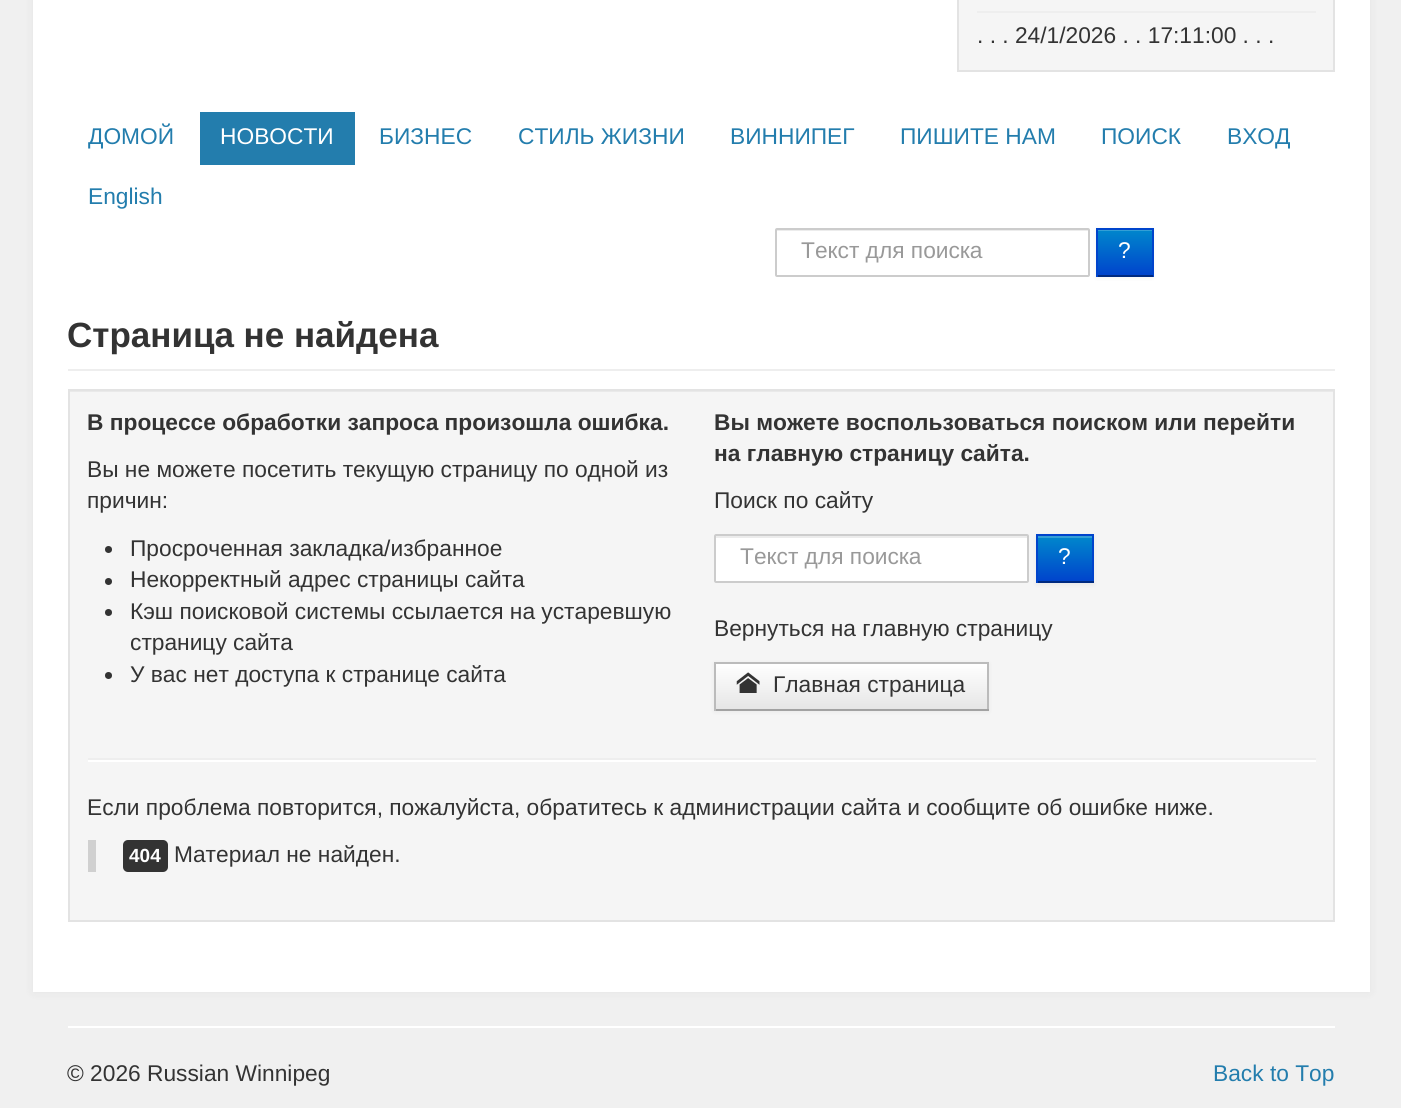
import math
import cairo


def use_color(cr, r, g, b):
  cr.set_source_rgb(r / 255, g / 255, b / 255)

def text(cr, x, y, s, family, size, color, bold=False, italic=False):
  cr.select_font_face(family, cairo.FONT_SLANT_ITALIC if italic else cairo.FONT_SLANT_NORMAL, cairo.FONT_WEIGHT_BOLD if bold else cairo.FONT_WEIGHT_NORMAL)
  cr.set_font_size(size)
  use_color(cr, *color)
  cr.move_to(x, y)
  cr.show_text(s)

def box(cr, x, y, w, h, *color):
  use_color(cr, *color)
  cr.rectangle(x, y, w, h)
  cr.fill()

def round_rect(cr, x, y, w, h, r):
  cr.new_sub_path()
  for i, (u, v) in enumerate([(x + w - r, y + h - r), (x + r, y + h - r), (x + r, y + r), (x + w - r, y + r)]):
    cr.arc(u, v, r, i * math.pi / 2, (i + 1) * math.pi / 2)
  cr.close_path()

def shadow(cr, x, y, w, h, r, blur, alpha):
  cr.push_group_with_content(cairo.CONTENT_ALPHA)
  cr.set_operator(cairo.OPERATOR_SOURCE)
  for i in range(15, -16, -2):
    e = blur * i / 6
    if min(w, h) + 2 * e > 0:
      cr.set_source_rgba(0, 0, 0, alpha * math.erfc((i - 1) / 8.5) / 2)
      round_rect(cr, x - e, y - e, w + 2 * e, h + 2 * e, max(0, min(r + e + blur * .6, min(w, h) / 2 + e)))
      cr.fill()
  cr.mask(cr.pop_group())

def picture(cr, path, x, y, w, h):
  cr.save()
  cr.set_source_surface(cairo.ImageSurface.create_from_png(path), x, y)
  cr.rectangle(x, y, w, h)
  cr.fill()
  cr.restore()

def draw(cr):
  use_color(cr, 240, 240, 240)
  cr.paint()
  use_color(cr, 0, 0, 0)
  shadow(cr, 33, -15, 1337, 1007, 0, 5, 0.05)
  box(cr, 33, 0, 1337, 992, 255, 255, 255)
  use_color(cr, 245, 245, 245)
  cr.rectangle(958, -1, 376, 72)
  cr.fill_preserve()
  use_color(cr, 227, 227, 227)
  cr.stroke()
  box(cr, 977, 11, 339, 2, 238, 238, 238)
  box(cr, 200, 112, 155, 53, 35, 125, 173)
  box(cr, 777, 230, 312, 1, 236, 236, 236)
  round_rect(cr, 776, 229, 313, 47, 1)
  use_color(cr, 204, 204, 204)
  cr.stroke()
  use_color(cr, 0, 0, 0)
  shadow(cr, 1096, 229, 57, 49, 0, 2, 0.05)
  gradient = cairo.LinearGradient(1124, 229, 1124, 275)
  gradient.add_color_stop_rgba(0, 0, 0.533, 0.8, 1)
  gradient.add_color_stop_rgba(1, 0, 0.267, 0.8, 1)
  cr.set_source(gradient)
  cr.rectangle(1098, 231, 54, 44)
  cr.fill()
  box(cr, 1097, 230, 55, 1, 51, 159, 214)
  box(cr, 1096, 228, 57, 2, 0, 68, 204)
  box(cr, 1152, 228, 2, 49, 0, 68, 204)
  box(cr, 1096, 275, 57, 2, 0, 42, 128)
  box(cr, 1096, 228, 2, 49, 0, 68, 204)
  box(cr, 68, 369, 1267, 2, 238, 238, 238)
  box(cr, 70, 392, 1263, 528, 245, 245, 245)
  box(cr, 70, 391, 1264, 1, 233, 233, 233)
  cr.rectangle(69, 390, 1265, 531)
  use_color(cr, 227, 227, 227)
  cr.stroke()
  use_color(cr, 51, 51, 51)
  cr.arc(108.5, 549.5, 3.5, 0, 2 * math.pi)
  cr.fill()
  cr.arc(108.5, 581.5, 3.5, 0, 2 * math.pi)
  cr.fill()
  cr.arc(108.5, 612.5, 3.5, 0, 2 * math.pi)
  cr.fill()
  cr.arc(108.5, 675.5, 3.5, 0, 2 * math.pi)
  cr.fill()
  use_color(cr, 255, 255, 255)
  round_rect(cr, 714, 534, 315, 49, 2)
  cr.fill()
  box(cr, 716, 536, 311, 2, 236, 236, 236)
  round_rect(cr, 715, 535, 313, 47, 1)
  use_color(cr, 204, 204, 204)
  cr.stroke()
  use_color(cr, 0, 0, 0)
  shadow(cr, 1036, 536, 58, 49, 0, 2, 0.05)
  gradient = cairo.LinearGradient(1065, 536, 1065, 581)
  gradient.add_color_stop_rgba(0, 0, 0.533, 0.8, 1)
  gradient.add_color_stop_rgba(1, 0, 0.267, 0.8, 1)
  cr.set_source(gradient)
  cr.rectangle(1038, 538, 54, 43)
  cr.fill()
  box(cr, 1038, 536, 54, 2, 51, 159, 214)
  box(cr, 1036, 534, 58, 2, 0, 68, 204)
  box(cr, 1092, 534, 2, 49, 0, 68, 204)
  box(cr, 1036, 581, 58, 2, 0, 42, 128)
  box(cr, 1036, 534, 2, 49, 0, 68, 204)
  use_color(cr, 0, 0, 0)
  shadow(cr, 714, 663, 275, 49, 0, 2, 0.05)
  gradient = cairo.LinearGradient(851, 663, 851, 709)
  gradient.add_color_stop_rgba(0, 1, 1, 1, 1)
  gradient.add_color_stop_rgba(1, 0.902, 0.902, 0.902, 1)
  cr.set_source(gradient)
  cr.rectangle(716, 664, 271, 45)
  cr.fill()
  box(cr, 714, 662, 275, 2, 187, 187, 187)
  box(cr, 987, 662, 2, 49, 187, 187, 187)
  box(cr, 714, 709, 275, 2, 162, 162, 162)
  box(cr, 714, 662, 2, 49, 187, 187, 187)
  picture(cr, "img_01.png", 736, 672, 24, 21)
  box(cr, 88, 758, 1228, 2, 238, 238, 238)
  box(cr, 88, 760, 1228, 2, 255, 255, 255)
  box(cr, 88, 840, 8, 32, 208, 208, 208)
  use_color(cr, 51, 51, 51)
  round_rect(cr, 123, 840, 45, 32, 5)
  cr.fill()
  box(cr, 68, 1026, 1267, 2, 255, 255, 255)
  text(cr, 977, 43, ". . . 24/1/2026 . . 17:11:00 . . .", "Liberation Sans", 22.75, (51, 51, 51))
  text(cr, 88, 144, "ДОМОЙ", "Liberation Sans", 22.75, (35, 125, 173))
  text(cr, 220, 144, "НОВОСТИ", "Liberation Sans", 22.75, (255, 255, 255))
  text(cr, 379, 144, "БИЗНЕС", "Liberation Sans", 22.75, (35, 125, 173))
  text(cr, 518, 144, "СТИЛЬ ЖИЗНИ", "Liberation Sans", 22.75, (35, 125, 173))
  text(cr, 730, 144, "ВИННИПЕГ", "Liberation Sans", 22.75, (35, 125, 173))
  text(cr, 900, 144, "ПИШИТЕ НАМ", "Liberation Sans", 22.75, (35, 125, 173))
  text(cr, 1101, 144, "ПОИСК", "Liberation Sans", 22.75, (35, 125, 173))
  text(cr, 1227, 144, "ВХОД", "Liberation Sans", 22.75, (35, 125, 173))
  text(cr, 88, 204, "English", "Liberation Sans", 22.75, (35, 125, 173))
  text(cr, 801, 258, "Текст для поиска", "Liberation Sans", 22.75, (153, 153, 153))
  text(cr, 1118, 258, "?", "Liberation Sans", 22.75, (255, 255, 255))
  text(cr, 67, 347, "Страница не найдена", "Liberation Sans", 35, (51, 51, 51), bold=True)
  text(cr, 87, 430, "В процессе обработки запроса произошла ошибка.", "Liberation Sans", 22.75, (51, 51, 51), bold=True)
  text(cr, 87, 477, "Вы не можете посетить текущую страницу по одной из", "Liberation Sans", 22.75, (51, 51, 51))
  text(cr, 87, 508, "причин:", "Liberation Sans", 22.75, (51, 51, 51))
  text(cr, 130, 556, "Просроченная закладка/избранное", "Liberation Sans", 22.75, (51, 51, 51))
  text(cr, 130, 587, "Некорректный адрес страницы сайта", "Liberation Sans", 22.75, (51, 51, 51))
  text(cr, 130, 619, "Кэш поисковой системы ссылается на устаревшую", "Liberation Sans", 22.75, (51, 51, 51))
  text(cr, 130, 650, "страницу сайта", "Liberation Sans", 22.75, (51, 51, 51))
  text(cr, 130, 682, "У вас нет доступа к странице сайта", "Liberation Sans", 22.75, (51, 51, 51))
  text(cr, 714, 430, "Вы можете воспользоваться поиском или перейти", "Liberation Sans", 22.75, (51, 51, 51), bold=True)
  text(cr, 714, 461, "на главную страницу сайта.", "Liberation Sans", 22.75, (51, 51, 51), bold=True)
  text(cr, 714, 508, "Поиск по сайту", "Liberation Sans", 22.75, (51, 51, 51))
  text(cr, 740, 564, "Текст для поиска", "Liberation Sans", 22.75, (153, 153, 153))
  text(cr, 1058, 564, "?", "Liberation Sans", 22.75, (255, 255, 255))
  text(cr, 714, 636, "Вернуться на главную страницу", "Liberation Sans", 22.75, (51, 51, 51))
  text(cr, 773, 692, "Главная страница", "Liberation Sans", 22.75, (51, 51, 51))
  text(cr, 87, 815, "Если проблема повторится, пожалуйста, обратитесь к администрации сайта и сообщите об ошибке ниже.", "Liberation Sans", 22.75, (51, 51, 51))
  text(cr, 129, 862, "404", "Liberation Sans", 19, (255, 255, 255), bold=True)
  text(cr, 174, 862, "Материал не найден.", "Liberation Sans", 22.75, (51, 51, 51))
  text(cr, 67, 1081, "© 2026 Russian Winnipeg", "Liberation Sans", 22.75, (51, 51, 51))
  text(cr, 1213, 1081, "Back to Top", "Liberation Sans", 22.75, (35, 125, 173))


surface = cairo.ImageSurface(cairo.FORMAT_RGB24, 1401, 1108)
cr = cairo.Context(surface)
options = cairo.FontOptions()
options.set_hint_metrics(cairo.HINT_METRICS_OFF)
options.set_hint_style(cairo.HINT_STYLE_NONE)
cr.set_font_options(options)
cr.set_miter_limit(4)
draw(cr)
surface.write_to_png("out.png")
